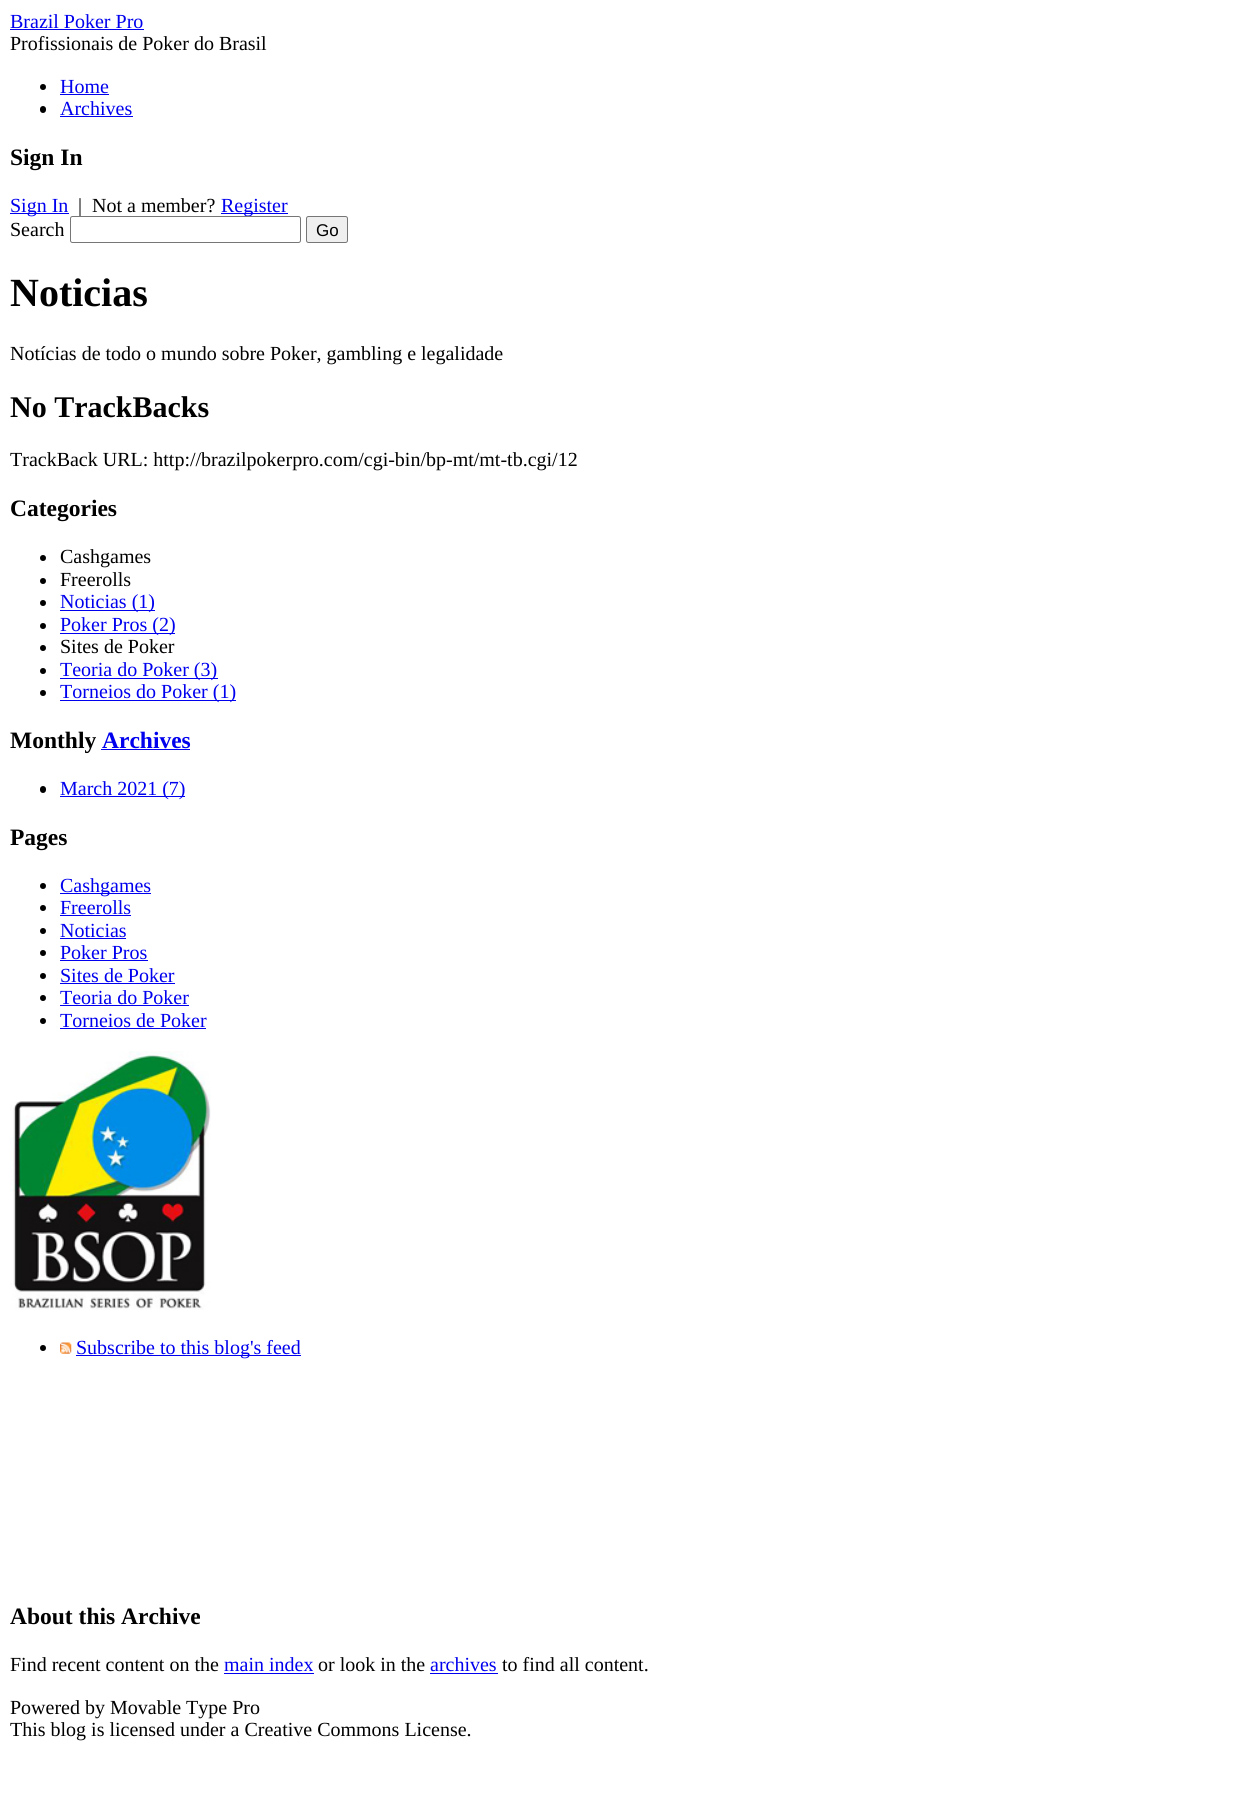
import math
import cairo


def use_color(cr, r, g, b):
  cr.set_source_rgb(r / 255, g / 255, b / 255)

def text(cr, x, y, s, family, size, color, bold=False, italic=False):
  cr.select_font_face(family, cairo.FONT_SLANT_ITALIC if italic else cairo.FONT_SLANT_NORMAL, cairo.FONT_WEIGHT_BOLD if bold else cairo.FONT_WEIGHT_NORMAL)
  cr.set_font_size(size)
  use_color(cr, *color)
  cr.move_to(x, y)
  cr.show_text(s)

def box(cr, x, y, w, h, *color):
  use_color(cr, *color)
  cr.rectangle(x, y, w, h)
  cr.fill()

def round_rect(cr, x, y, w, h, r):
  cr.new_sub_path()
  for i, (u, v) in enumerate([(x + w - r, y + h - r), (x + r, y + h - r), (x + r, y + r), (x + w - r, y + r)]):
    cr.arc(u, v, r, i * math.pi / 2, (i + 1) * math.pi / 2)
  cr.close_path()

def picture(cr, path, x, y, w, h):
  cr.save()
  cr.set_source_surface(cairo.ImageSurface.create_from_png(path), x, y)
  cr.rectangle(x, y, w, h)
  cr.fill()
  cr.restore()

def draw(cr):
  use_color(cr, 255, 255, 255)
  cr.paint()
  box(cr, 10, 29, 134, 1, 0, 0, 238)
  use_color(cr, 0, 0, 0)
  cr.arc(43, 87, 3, 0, 2 * math.pi)
  cr.fill()
  box(cr, 60, 94, 49, 1, 0, 0, 238)
  use_color(cr, 0, 0, 0)
  round_rect(cr, 40, 106, 6, 7, 3)
  cr.fill()
  box(cr, 60, 116, 73, 1, 0, 0, 238)
  box(cr, 10, 213, 59, 1, 0, 0, 238)
  box(cr, 221, 213, 67, 1, 0, 0, 238)
  use_color(cr, 239, 239, 239)
  round_rect(cr, 306.5, 216.5, 41, 26, 2)
  cr.fill_preserve()
  use_color(cr, 118, 118, 118)
  cr.set_line_width(1)
  cr.stroke()
  use_color(cr, 0, 0, 0)
  cr.arc(43, 558, 3, 0, 2 * math.pi)
  cr.fill()
  cr.arc(43, 581, 3, 0, 2 * math.pi)
  cr.fill()
  cr.arc(43, 603, 3, 0, 2 * math.pi)
  cr.fill()
  box(cr, 60, 610, 95, 1, 0, 0, 238)
  use_color(cr, 0, 0, 0)
  cr.arc(43, 626, 3, 0, 2 * math.pi)
  cr.fill()
  box(cr, 60, 633, 115, 1, 0, 0, 238)
  use_color(cr, 0, 0, 0)
  cr.arc(43, 648, 3, 0, 2 * math.pi)
  cr.fill()
  cr.arc(43, 671, 3, 0, 2 * math.pi)
  cr.fill()
  box(cr, 60, 678, 158, 1, 0, 0, 238)
  use_color(cr, 0, 0, 0)
  cr.arc(43, 693, 3, 0, 2 * math.pi)
  cr.fill()
  box(cr, 60, 700, 176, 1, 0, 0, 238)
  box(cr, 101, 749, 89, 1, 0, 0, 238)
  use_color(cr, 0, 0, 0)
  round_rect(cr, 40, 786, 6, 7, 3)
  cr.fill()
  box(cr, 60, 796, 125, 1, 0, 0, 238)
  use_color(cr, 0, 0, 0)
  cr.arc(43, 886, 3, 0, 2 * math.pi)
  cr.fill()
  box(cr, 60, 893, 91, 1, 0, 0, 238)
  use_color(cr, 0, 0, 0)
  cr.arc(43, 908, 3, 0, 2 * math.pi)
  cr.fill()
  box(cr, 60, 915, 71, 1, 0, 0, 238)
  use_color(cr, 0, 0, 0)
  cr.arc(43, 931, 3, 0, 2 * math.pi)
  cr.fill()
  box(cr, 60, 938, 66, 1, 0, 0, 238)
  use_color(cr, 0, 0, 0)
  cr.arc(43, 953, 3, 0, 2 * math.pi)
  cr.fill()
  box(cr, 60, 960, 88, 1, 0, 0, 238)
  use_color(cr, 0, 0, 0)
  cr.arc(43, 976, 3, 0, 2 * math.pi)
  cr.fill()
  box(cr, 60, 983, 115, 1, 0, 0, 238)
  use_color(cr, 0, 0, 0)
  cr.arc(43, 998, 3, 0, 2 * math.pi)
  cr.fill()
  box(cr, 60, 1005, 129, 1, 0, 0, 238)
  use_color(cr, 0, 0, 0)
  cr.arc(43, 1021, 3, 0, 2 * math.pi)
  cr.fill()
  box(cr, 60, 1028, 146, 1, 0, 0, 238)
  picture(cr, "img_01.png", 10, 1051, 201, 259)
  use_color(cr, 0, 0, 0)
  cr.arc(43, 1348, 3, 0, 2 * math.pi)
  cr.fill()
  picture(cr, "img_02.png", 60, 1342, 12, 12)
  box(cr, 76, 1355, 225, 1, 0, 0, 238)
  box(cr, 224, 1673, 90, 1, 0, 0, 238)
  box(cr, 430, 1673, 68, 1, 0, 0, 238)
  text(cr, 10, 28, "Brazil Poker Pro", "Liberation Serif", 20, (0, 0, 238))
  text(cr, 10, 50, "Profissionais de Poker do Brasil", "Liberation Serif", 20, (0, 0, 0))
  text(cr, 60, 93, "Home", "Liberation Serif", 20, (0, 0, 238))
  text(cr, 60, 115, "Archives", "Liberation Serif", 20, (0, 0, 238))
  text(cr, 10, 165, "Sign In", "Liberation Serif", 23.5, (0, 0, 0), bold=True)
  text(cr, 10, 212, "Sign In", "Liberation Serif", 20, (0, 0, 238))
  text(cr, 78, 212, "|  Not a member?", "Liberation Serif", 20, (0, 0, 0))
  text(cr, 221, 212, "Register", "Liberation Serif", 20, (0, 0, 238))
  text(cr, 10, 236, "Search", "Liberation Serif", 20, (0, 0, 0))
  use_color(cr, 255, 255, 255)
  round_rect(cr, 70.5, 216.5, 230, 26, 2)
  cr.fill_preserve()
  use_color(cr, 118, 118, 118)
  cr.stroke()
  text(cr, 316, 236, "Go", "Liberation Sans", 17, (0, 0, 0))
  text(cr, 10, 306, "Noticias", "Liberation Serif", 40, (0, 0, 0), bold=True)
  text(cr, 10, 360, "Notícias de todo o mundo sobre Poker, gambling e legalidade", "Liberation Serif", 20, (0, 0, 0))
  text(cr, 10, 417, "No TrackBacks", "Liberation Serif", 30, (0, 0, 0), bold=True)
  text(cr, 10, 466, "TrackBack URL: http://brazilpokerpro.com/cgi-bin/bp-mt/mt-tb.cgi/12", "Liberation Serif", 20, (0, 0, 0))
  text(cr, 10, 516, "Categories", "Liberation Serif", 23.5, (0, 0, 0), bold=True)
  text(cr, 60, 563, "Cashgames", "Liberation Serif", 20, (0, 0, 0))
  text(cr, 60, 586, "Freerolls", "Liberation Serif", 20, (0, 0, 0))
  text(cr, 60, 608, "Noticias (1)", "Liberation Serif", 20, (0, 0, 238))
  text(cr, 60, 631, "Poker Pros (2)", "Liberation Serif", 20, (0, 0, 238))
  text(cr, 60, 653, "Sites de Poker", "Liberation Serif", 20, (0, 0, 0))
  text(cr, 60, 676, "Teoria do Poker (3)", "Liberation Serif", 20, (0, 0, 238))
  text(cr, 60, 698, "Torneios do Poker (1)", "Liberation Serif", 20, (0, 0, 238))
  text(cr, 10, 748, "Monthly", "Liberation Serif", 23.5, (0, 0, 0), bold=True)
  text(cr, 102, 748, "Archives", "Liberation Serif", 23.5, (0, 0, 238), bold=True)
  text(cr, 60, 795, "March 2021 (7)", "Liberation Serif", 20, (0, 0, 238))
  text(cr, 10, 845, "Pages", "Liberation Serif", 23.5, (0, 0, 0), bold=True)
  text(cr, 60, 892, "Cashgames", "Liberation Serif", 20, (0, 0, 238))
  text(cr, 60, 914, "Freerolls", "Liberation Serif", 20, (0, 0, 238))
  text(cr, 60, 937, "Noticias", "Liberation Serif", 20, (0, 0, 238))
  text(cr, 60, 959, "Poker Pros", "Liberation Serif", 20, (0, 0, 238))
  text(cr, 60, 982, "Sites de Poker", "Liberation Serif", 20, (0, 0, 238))
  text(cr, 60, 1004, "Teoria do Poker", "Liberation Serif", 20, (0, 0, 238))
  text(cr, 60, 1027, "Torneios de Poker", "Liberation Serif", 20, (0, 0, 238))
  text(cr, 76, 1354, "Subscribe to this blog's feed", "Liberation Serif", 20, (0, 0, 238))
  text(cr, 10, 1624, "About this Archive", "Liberation Serif", 23.5, (0, 0, 0), bold=True)
  text(cr, 10, 1671, "Find recent content on the", "Liberation Serif", 20, (0, 0, 0))
  text(cr, 224, 1671, "main index", "Liberation Serif", 20, (0, 0, 238))
  text(cr, 318, 1671, "or look in the", "Liberation Serif", 20, (0, 0, 0))
  text(cr, 430, 1671, "archives", "Liberation Serif", 20, (0, 0, 238))
  text(cr, 502, 1671, "to find all content.", "Liberation Serif", 20, (0, 0, 0))
  text(cr, 10, 1714, "Powered by Movable Type Pro", "Liberation Serif", 20, (0, 0, 0))
  text(cr, 10, 1736, "This blog is licensed under a Creative Commons License.", "Liberation Serif", 20, (0, 0, 0))


surface = cairo.ImageSurface(cairo.FORMAT_RGB24, 1259, 1799)
cr = cairo.Context(surface)
options = cairo.FontOptions()
options.set_hint_metrics(cairo.HINT_METRICS_OFF)
options.set_hint_style(cairo.HINT_STYLE_NONE)
cr.set_font_options(options)
cr.set_miter_limit(4)
draw(cr)
surface.write_to_png("out.png")
